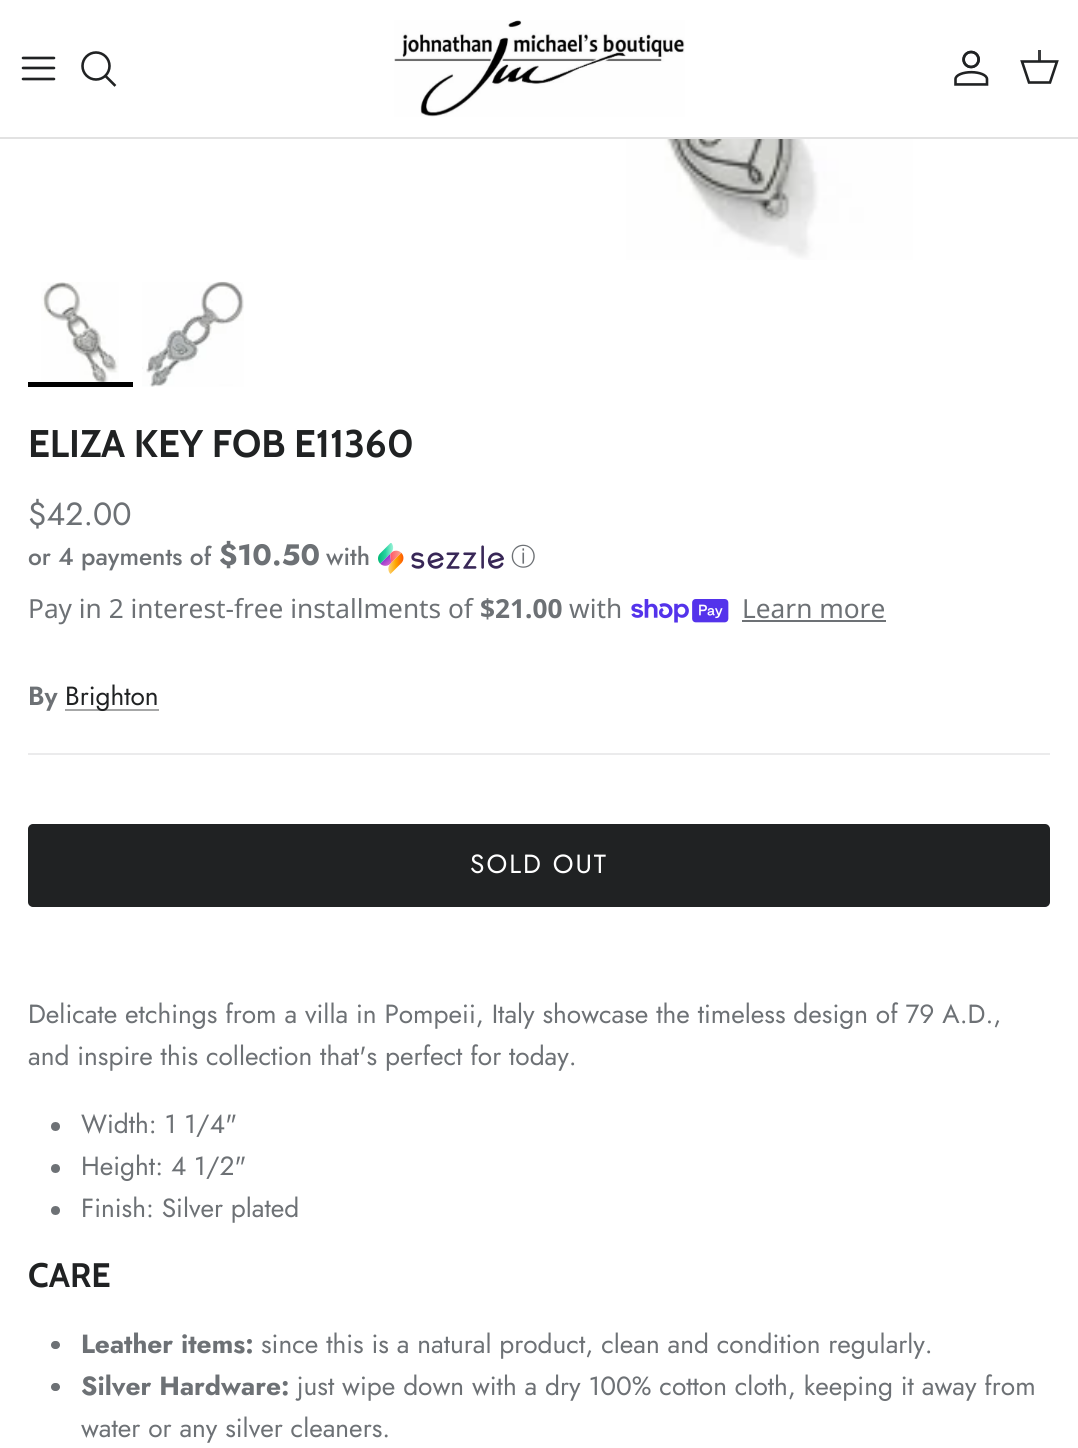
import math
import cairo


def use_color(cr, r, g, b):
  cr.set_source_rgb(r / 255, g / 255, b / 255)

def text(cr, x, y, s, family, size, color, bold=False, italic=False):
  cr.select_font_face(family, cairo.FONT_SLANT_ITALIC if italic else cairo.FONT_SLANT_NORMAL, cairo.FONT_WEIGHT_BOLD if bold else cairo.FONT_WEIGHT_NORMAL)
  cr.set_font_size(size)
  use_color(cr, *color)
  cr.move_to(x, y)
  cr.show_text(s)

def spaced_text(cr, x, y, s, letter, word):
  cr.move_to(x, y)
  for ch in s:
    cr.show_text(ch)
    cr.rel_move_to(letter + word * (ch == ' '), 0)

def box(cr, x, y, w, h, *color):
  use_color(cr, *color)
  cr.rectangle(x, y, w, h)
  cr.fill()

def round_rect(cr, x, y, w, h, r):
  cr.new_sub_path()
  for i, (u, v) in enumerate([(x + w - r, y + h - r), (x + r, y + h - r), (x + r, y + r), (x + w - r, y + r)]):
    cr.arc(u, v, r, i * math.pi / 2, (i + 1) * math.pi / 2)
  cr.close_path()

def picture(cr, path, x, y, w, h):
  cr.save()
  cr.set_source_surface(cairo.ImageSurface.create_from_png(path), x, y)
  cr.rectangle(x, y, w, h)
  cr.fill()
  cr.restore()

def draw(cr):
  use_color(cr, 255, 255, 255)
  cr.paint()
  box(cr, 0, 137, 1078, 2, 226, 226, 226)
  cr.new_path()
  cr.move_to(23, 68)
  cr.line_to(54, 68)
  cr.move_to(23, 58)
  cr.line_to(54, 58)
  cr.move_to(23, 79)
  cr.line_to(54, 79)
  use_color(cr, 32, 34, 35)
  cr.set_line_width(2.6)
  cr.set_line_cap(cairo.LINE_CAP_ROUND)
  cr.set_line_join(cairo.LINE_JOIN_ROUND)
  cr.stroke()
  cr.arc(96, 66, 13.5, 0, 2 * math.pi)
  cr.set_line_cap(cairo.LINE_CAP_BUTT)
  cr.set_line_join(cairo.LINE_JOIN_MITER)
  cr.stroke()
  cr.new_path()
  cr.move_to(106.5, 77)
  cr.line_to(114.5, 85)
  cr.set_line_cap(cairo.LINE_CAP_SQUARE)
  cr.stroke()
  picture(cr, "img_01.png", 394, 20, 291, 97)
  picture(cr, "img_02.png", 954, 50, 35, 36)
  cr.new_path()
  cr.move_to(1022, 61.5)
  cr.line_to(1057, 61.5)
  cr.line_to(1050, 82.5)
  cr.line_to(1029, 82.5)
  cr.close_path()
  cr.set_line_cap(cairo.LINE_CAP_BUTT)
  cr.stroke()
  cr.set_source_rgba(0.125, 0.133, 0.137, 0.87)
  cr.rectangle(1038, 50, 3, 12)
  cr.fill()
  picture(cr, "img_03.png", 626, 139, 287, 121)
  picture(cr, "img_04.png", 41, 282, 78, 100)
  box(cr, 28, 382, 105, 5, 0, 0, 0)
  picture(cr, "img_05.png", 142, 281, 102, 106)
  picture(cr, "img_06.png", 378, 543, 126, 31)
  picture(cr, "img_07.png", 631, 599, 98, 24)
  box(cr, 742, 620, 144, 2, 109, 113, 117)
  box(cr, 65, 709, 94, 2, 166, 167, 167)
  box(cr, 28, 753, 1022, 2, 235, 235, 236)
  use_color(cr, 32, 34, 35)
  round_rect(cr, 29, 825, 1020, 81, 4)
  cr.fill_preserve()
  cr.set_line_width(2)
  cr.stroke()
  use_color(cr, 109, 113, 117)
  cr.arc(55.5, 1126.5, 4.5, 0, 2 * math.pi)
  cr.fill()
  cr.arc(55.5, 1168.5, 4.5, 0, 2 * math.pi)
  cr.fill()
  cr.arc(55.5, 1210.5, 4.5, 0, 2 * math.pi)
  cr.fill()
  round_rect(cr, 51, 1341, 9, 8, 4)
  cr.fill()
  round_rect(cr, 51, 1383, 9, 8, 4)
  cr.fill()
  text(cr, 28, 457, "ELIZA KEY FOB E11360", "Cabin", 38.5, (32, 34, 35), bold=True)
  text(cr, 28, 525, "$42.00", "Jost", 32, (109, 113, 117))
  text(cr, 28, 565, "or 4 payments of", "Jost Medium", 24.5, (109, 113, 117))
  text(cr, 219, 565, "$10.50", "Jost", 29.5, (109, 113, 117), bold=True)
  text(cr, 326, 565, "with", "Jost Medium", 24.5, (109, 113, 117))
  text(cr, 511, 565, "ⓘ", "WenQuanYi Zen Hei Medium", 24.5, (109, 113, 117))
  text(cr, 28, 618, "Pay in 2 interest-free installments of", "Noto Sans", 26.25, (109, 113, 117))
  text(cr, 480, 618, "$21.00", "Noto Sans", 26.25, (109, 113, 117), bold=True)
  text(cr, 569, 618, "with", "Noto Sans", 26.25, (109, 113, 117))
  text(cr, 742, 618, "Learn more", "Noto Sans", 26.25, (109, 113, 117))
  text(cr, 28, 705, "By", "Jost SemiBold", 26.25, (109, 113, 117))
  text(cr, 65, 705, "Brighton", "Jost", 26.25, (32, 34, 35))
  use_color(cr, 255, 255, 255)
  spaced_text(cr, 470, 873, "SOLD OUT", 2, 0)
  text(cr, 28, 1023, "Delicate etchings from a villa in Pompeii, Italy showcase the timeless design of 79 A.D.,", "Jost", 26.25, (109, 113, 117))
  text(cr, 28, 1065, "and inspire this collection that's perfect for today.", "Jost", 26.25, (109, 113, 117))
  text(cr, 81, 1133, "Width: 1 1/4\"", "Jost", 26.25, (109, 113, 117))
  text(cr, 81, 1175, "Height: 4 1/2\"", "Jost", 26.25, (109, 113, 117))
  text(cr, 81, 1217, "Finish: Silver plated", "Jost", 26.25, (109, 113, 117))
  text(cr, 28, 1287, "CARE", "Cabin", 34, (32, 34, 35), bold=True)
  text(cr, 81, 1353, "Leather items:", "Jost", 26.25, (109, 113, 117), bold=True)
  text(cr, 261, 1353, "since this is a natural product, clean and condition regularly.", "Jost", 26.25, (109, 113, 117))
  text(cr, 81, 1395, "Silver Hardware:", "Jost", 26.25, (109, 113, 117), bold=True)
  text(cr, 297, 1395, "just wipe down with a dry 100% cotton cloth, keeping it away from", "Jost", 26.25, (109, 113, 117))
  text(cr, 81, 1437, "water or any silver cleaners.", "Jost", 26.25, (109, 113, 117))


surface = cairo.ImageSurface(cairo.FORMAT_RGB24, 1078, 1448)
cr = cairo.Context(surface)
options = cairo.FontOptions()
options.set_hint_metrics(cairo.HINT_METRICS_OFF)
options.set_hint_style(cairo.HINT_STYLE_NONE)
cr.set_font_options(options)
cr.set_miter_limit(4)
draw(cr)
surface.write_to_png("out.png")
